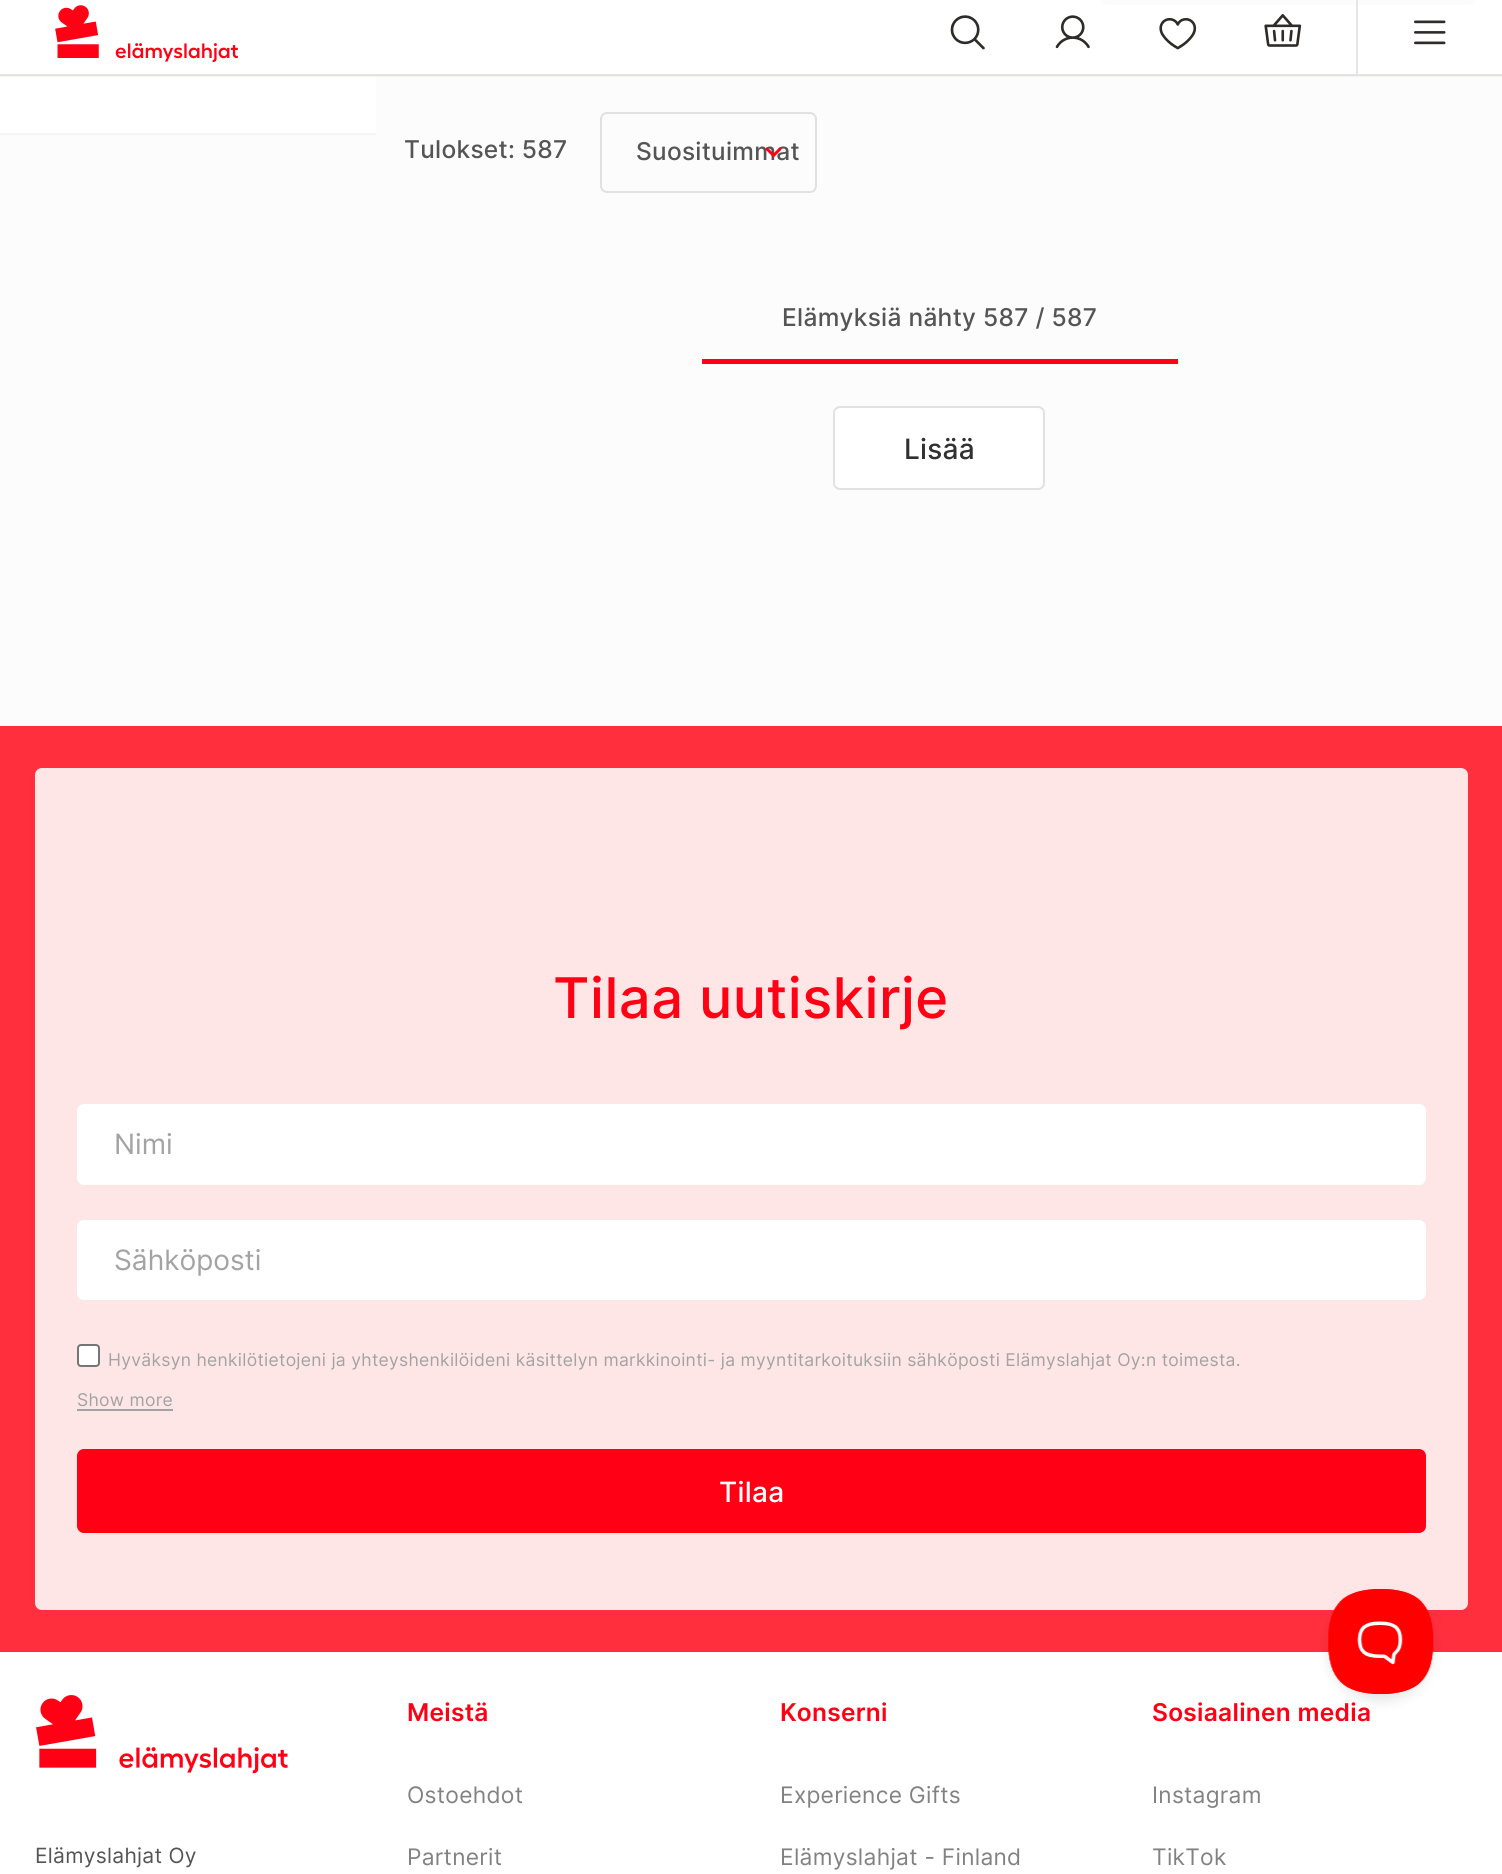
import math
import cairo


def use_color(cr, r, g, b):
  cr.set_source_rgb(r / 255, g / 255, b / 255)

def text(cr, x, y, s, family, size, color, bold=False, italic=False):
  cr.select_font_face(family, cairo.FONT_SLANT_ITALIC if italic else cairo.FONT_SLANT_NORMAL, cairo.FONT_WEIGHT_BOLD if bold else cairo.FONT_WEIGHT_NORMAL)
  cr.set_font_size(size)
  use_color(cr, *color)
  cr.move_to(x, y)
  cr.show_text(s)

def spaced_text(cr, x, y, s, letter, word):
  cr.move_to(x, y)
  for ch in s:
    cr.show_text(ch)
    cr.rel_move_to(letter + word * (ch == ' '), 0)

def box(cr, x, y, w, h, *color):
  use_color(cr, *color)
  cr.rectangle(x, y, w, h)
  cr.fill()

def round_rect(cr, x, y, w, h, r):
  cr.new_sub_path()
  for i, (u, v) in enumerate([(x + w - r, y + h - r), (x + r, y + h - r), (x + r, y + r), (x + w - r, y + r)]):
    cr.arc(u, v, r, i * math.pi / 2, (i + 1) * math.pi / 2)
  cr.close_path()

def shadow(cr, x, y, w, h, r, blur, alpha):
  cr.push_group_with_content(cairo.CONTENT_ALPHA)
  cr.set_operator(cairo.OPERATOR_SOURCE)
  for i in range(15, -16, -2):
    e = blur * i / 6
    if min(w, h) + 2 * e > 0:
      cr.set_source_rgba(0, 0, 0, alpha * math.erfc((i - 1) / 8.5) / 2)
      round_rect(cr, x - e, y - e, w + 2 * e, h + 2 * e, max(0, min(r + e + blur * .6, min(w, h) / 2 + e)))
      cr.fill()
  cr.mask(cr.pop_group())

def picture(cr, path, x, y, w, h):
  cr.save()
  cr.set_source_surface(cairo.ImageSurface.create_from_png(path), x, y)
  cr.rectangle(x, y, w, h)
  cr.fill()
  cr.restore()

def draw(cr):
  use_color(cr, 252, 252, 252)
  cr.paint()
  box(cr, 0, 74, 1502, 2, 230, 226, 224)
  box(cr, 0, 0, 1502, 74, 255, 255, 255)
  picture(cr, "img_01.png", 55, 5, 183, 58)
  picture(cr, "img_02.png", 950, 15, 35, 35)
  picture(cr, "img_03.png", 1055, 15, 35, 34)
  picture(cr, "img_04.png", 1159, 17, 38, 33)
  picture(cr, "img_05.png", 1264, 14, 38, 33)
  use_color(cr, 252, 252, 252)
  round_rect(cr, 1101, -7, 374, 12, 7)
  cr.fill()
  cr.set_source_rgba(0.902, 0.886, 0.878, 0.9)
  cr.rectangle(1356, 0, 2, 74)
  cr.fill()
  picture(cr, "img_06.png", 1414, 20, 32, 25)
  box(cr, 0, 76, 1502, 1, 244, 244, 244)
  box(cr, 0, 77, 376, 56, 255, 255, 255)
  box(cr, 0, 133, 376, 2, 244, 244, 244)
  round_rect(cr, 601, 113, 215, 79, 6)
  use_color(cr, 225, 225, 225)
  cr.stroke()
  box(cr, 702, 359, 476, 5, 255, 0, 20)
  use_color(cr, 255, 255, 255)
  round_rect(cr, 834, 407, 210, 82, 6)
  cr.fill_preserve()
  use_color(cr, 225, 225, 225)
  cr.stroke()
  box(cr, 0, 726, 1502, 926, 255, 47, 62)
  use_color(cr, 255, 230, 230)
  round_rect(cr, 35, 768, 1433, 842, 7)
  cr.fill()
  use_color(cr, 255, 255, 255)
  round_rect(cr, 78, 1105, 1347, 79, 6)
  cr.fill_preserve()
  cr.stroke()
  round_rect(cr, 78, 1221, 1347, 78, 6)
  cr.fill_preserve()
  cr.stroke()
  round_rect(cr, 78, 1345, 21, 21, 3)
  cr.fill_preserve()
  use_color(cr, 118, 118, 118)
  cr.stroke()
  box(cr, 77, 1409, 96, 2, 163, 163, 163)
  use_color(cr, 255, 0, 20)
  round_rect(cr, 78, 1450, 1347, 82, 6)
  cr.fill_preserve()
  cr.stroke()
  box(cr, 0, 1652, 1502, 222, 255, 255, 255)
  picture(cr, "img_08.png", 36, 1695, 252, 79)
  use_color(cr, 0, 0, 0)
  shadow(cr, 1328, 1596, 105, 105, 52.5, 6, 0.1)
  picture(cr, "img_09.png", 1328, 1589, 106, 105)
  cr.select_font_face("Inter Medium")
  cr.set_font_size(24.5)
  use_color(cr, 85, 85, 85)
  spaced_text(cr, 404, 158, "Tulokset: 587", 0.28, 0)
  spaced_text(cr, 636, 160, "Suosituimmat", 0.28, 0)
  picture(cr, "img_07.png", 765, 147, 17, 10)
  spaced_text(cr, 782, 326, "Elämyksiä nähty 587 / 587", 0.28, 0)
  cr.set_font_size(28)
  use_color(cr, 49, 49, 49)
  spaced_text(cr, 904, 459, "Lisää", 0.28, 0)
  cr.set_font_size(56)
  use_color(cr, 255, 0, 20)
  spaced_text(cr, 553, 1018, "Tilaa uutiskirje", 0.5, 0)
  text(cr, 114, 1154, "Nimi", "Inter", 28, (163, 163, 163))
  text(cr, 114, 1270, "Sähköposti", "Inter", 28, (163, 163, 163))
  cr.set_font_size(17.5)
  spaced_text(cr, 108, 1366, "Hyväksyn henkilötietojeni ja yhteyshenkilöideni käsittelyn markkinointi- ja myyntitarkoituksiin sähköposti Elämyslahjat Oy:n toimesta.", 0.28, 0)
  spaced_text(cr, 77, 1406, "Show more", 0.28, 0)
  cr.select_font_face("Inter Medium")
  cr.set_font_size(28)
  use_color(cr, 255, 255, 255)
  spaced_text(cr, 719, 1502, "Tilaa", 0.28, 0)
  cr.select_font_face("Inter")
  cr.set_font_size(21)
  use_color(cr, 85, 85, 85)
  spaced_text(cr, 35, 1863, "Elämyslahjat Oy", 0.28, 0)
  cr.select_font_face("Inter SemiBold")
  cr.set_font_size(24.5)
  use_color(cr, 255, 0, 20)
  spaced_text(cr, 407, 1721, "Meistä", 0.28, 0)
  cr.select_font_face("Inter")
  cr.set_font_size(22.75)
  use_color(cr, 130, 130, 130)
  spaced_text(cr, 407, 1803, "Ostoehdot", 0.28, 0)
  spaced_text(cr, 407, 1865, "Partnerit", 0.28, 0)
  cr.select_font_face("Inter SemiBold")
  cr.set_font_size(24.5)
  use_color(cr, 255, 0, 20)
  spaced_text(cr, 780, 1721, "Konserni", 0.28, 0)
  cr.select_font_face("Inter")
  cr.set_font_size(22.75)
  use_color(cr, 130, 130, 130)
  spaced_text(cr, 780, 1803, "Experience Gifts", 0.28, 0)
  spaced_text(cr, 780, 1865, "Elämyslahjat - Finland", 0.28, 0)
  cr.select_font_face("Inter SemiBold")
  cr.set_font_size(24.5)
  use_color(cr, 255, 0, 20)
  spaced_text(cr, 1152, 1721, "Sosiaalinen media", 0.28, 0)
  cr.select_font_face("Inter")
  cr.set_font_size(22.75)
  use_color(cr, 130, 130, 130)
  spaced_text(cr, 1152, 1803, "Instagram", 0.28, 0)
  spaced_text(cr, 1152, 1865, "TikTok", 0.28, 0)


surface = cairo.ImageSurface(cairo.FORMAT_RGB24, 1502, 1874)
cr = cairo.Context(surface)
options = cairo.FontOptions()
options.set_hint_metrics(cairo.HINT_METRICS_OFF)
options.set_hint_style(cairo.HINT_STYLE_NONE)
cr.set_font_options(options)
cr.set_miter_limit(4)
draw(cr)
surface.write_to_png("out.png")
